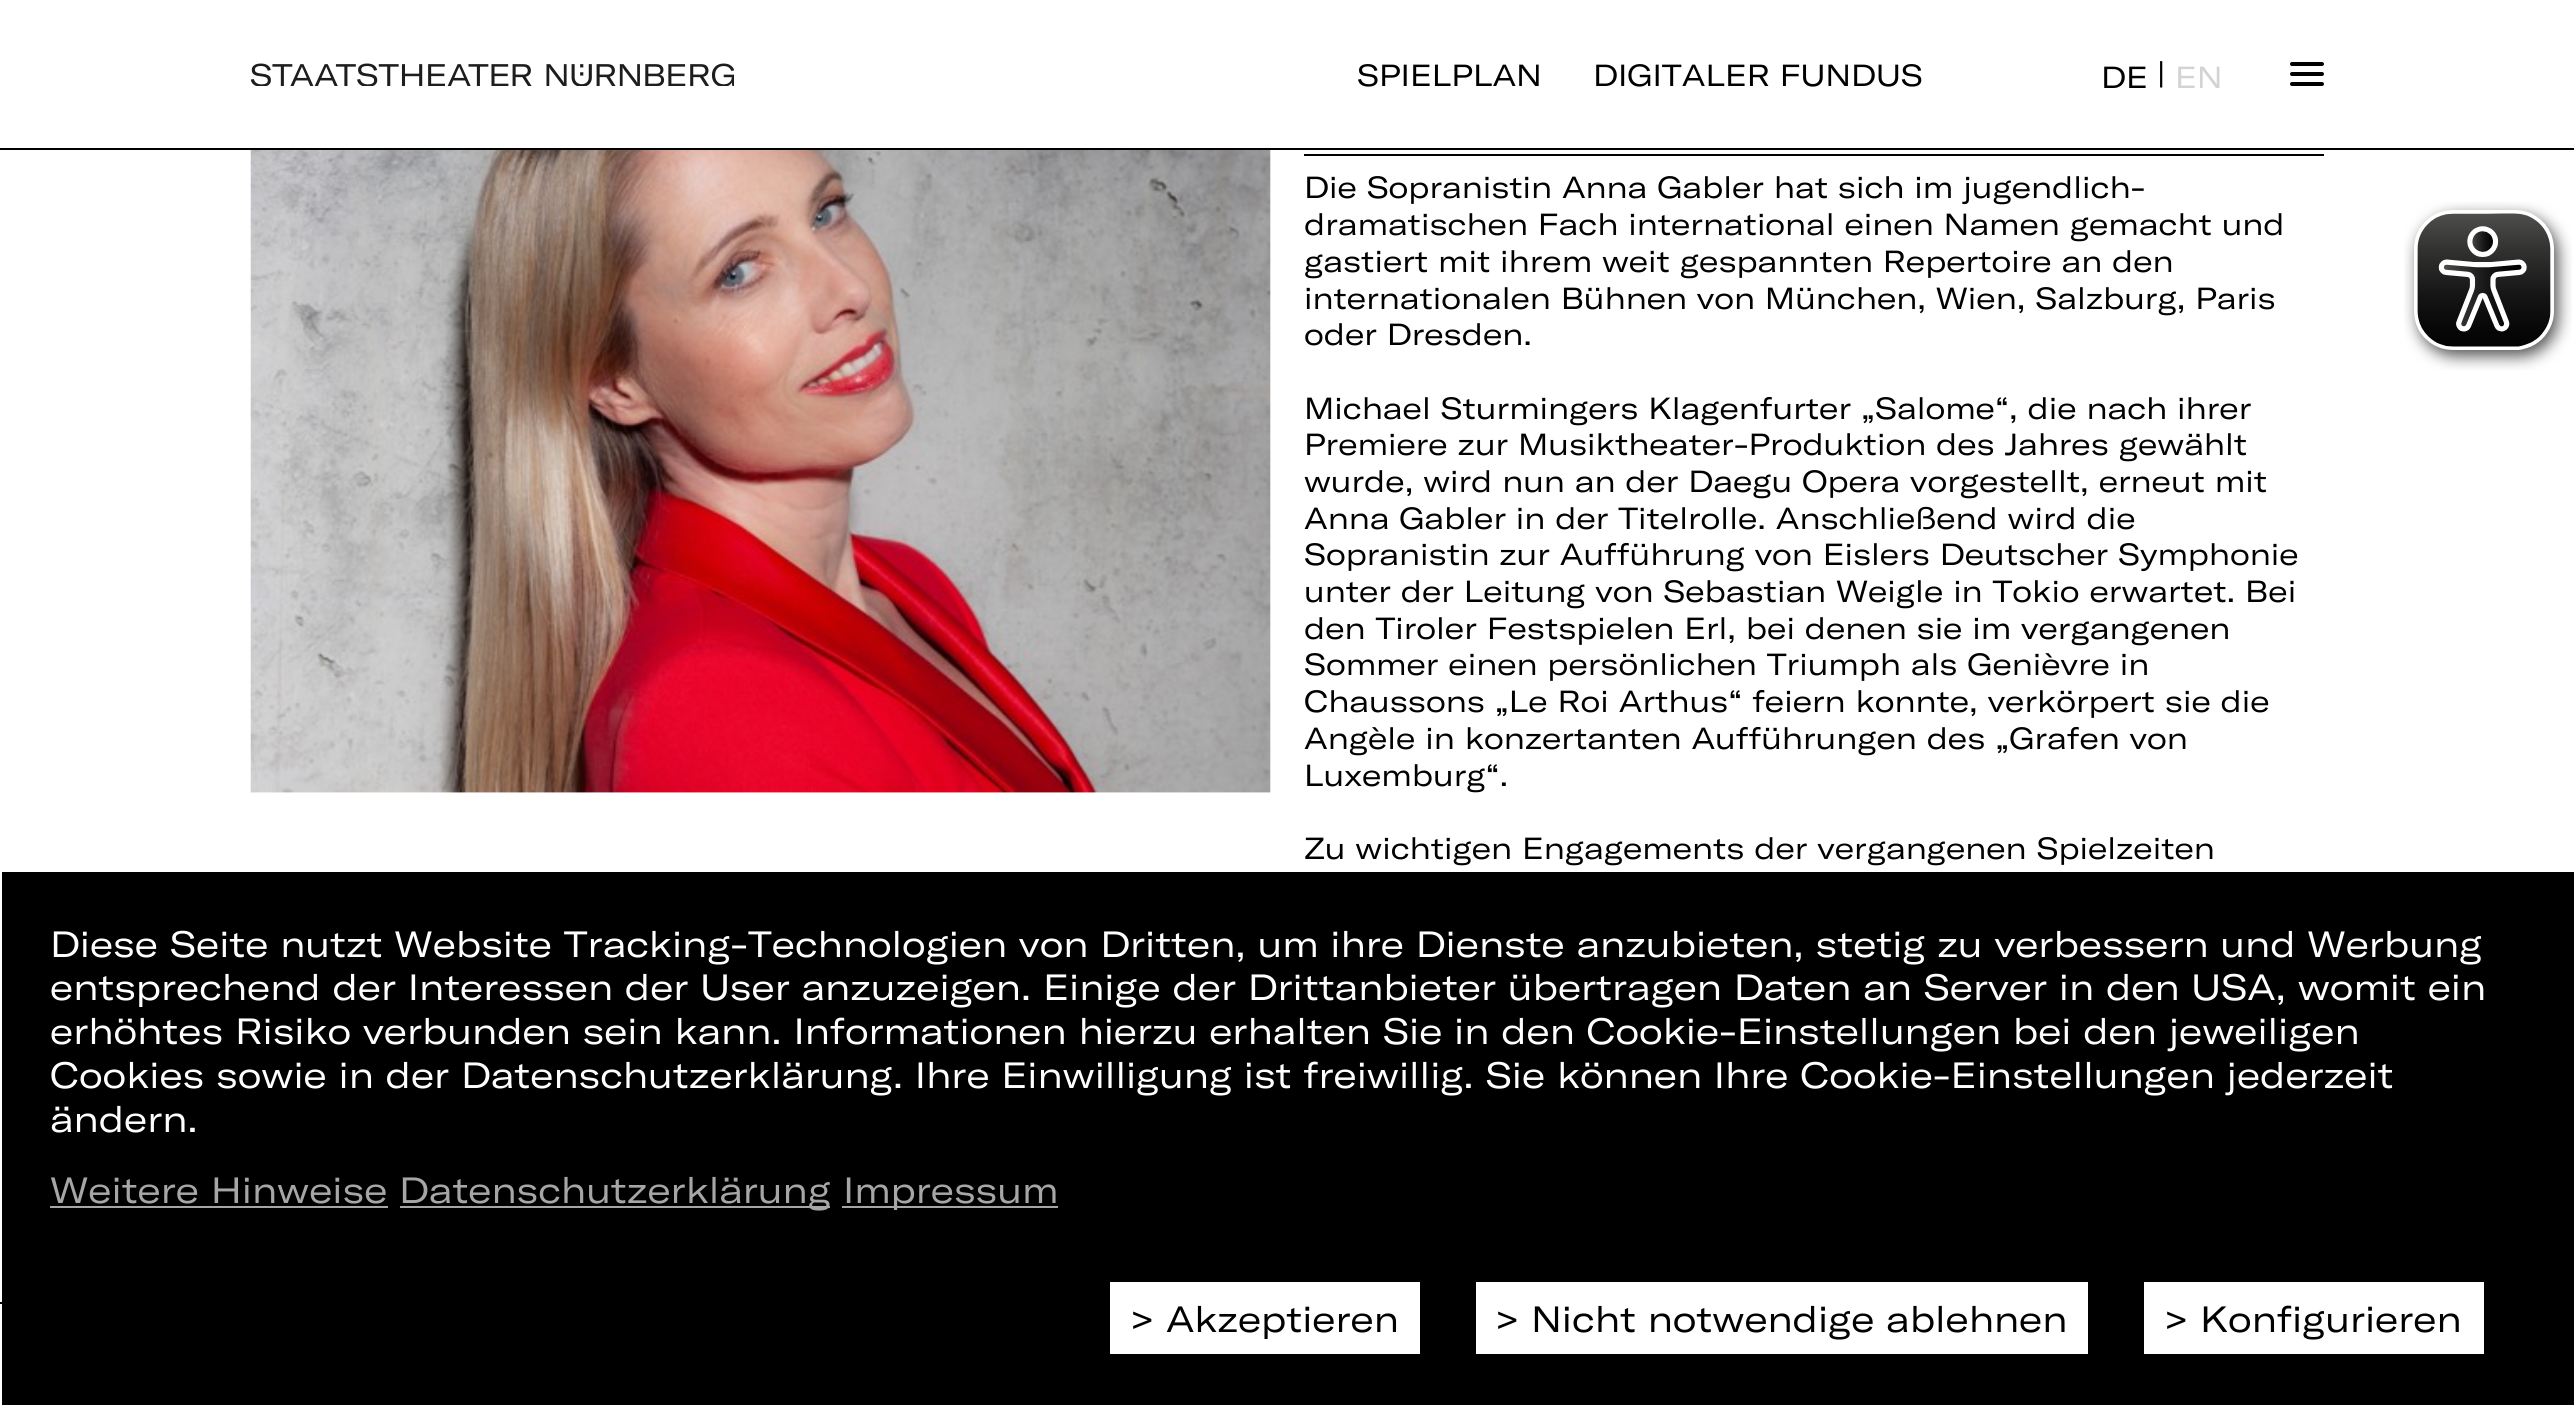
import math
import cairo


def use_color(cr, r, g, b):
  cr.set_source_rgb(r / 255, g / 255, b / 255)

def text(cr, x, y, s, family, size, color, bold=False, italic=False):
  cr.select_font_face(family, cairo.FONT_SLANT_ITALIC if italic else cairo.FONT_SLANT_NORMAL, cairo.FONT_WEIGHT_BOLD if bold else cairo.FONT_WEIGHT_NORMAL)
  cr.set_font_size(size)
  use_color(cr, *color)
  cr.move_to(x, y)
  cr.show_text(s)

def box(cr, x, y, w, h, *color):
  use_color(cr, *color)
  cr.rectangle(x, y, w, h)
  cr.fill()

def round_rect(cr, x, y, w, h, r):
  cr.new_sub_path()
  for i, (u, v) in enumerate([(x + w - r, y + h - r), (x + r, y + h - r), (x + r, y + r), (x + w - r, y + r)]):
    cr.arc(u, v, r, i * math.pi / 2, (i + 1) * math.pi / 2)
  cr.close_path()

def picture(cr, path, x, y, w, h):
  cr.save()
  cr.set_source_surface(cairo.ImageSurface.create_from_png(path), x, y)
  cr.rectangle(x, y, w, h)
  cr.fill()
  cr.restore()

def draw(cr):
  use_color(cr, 255, 255, 255)
  cr.paint()
  box(cr, 0, 148, 2574, 2, 0, 0, 0)
  picture(cr, "img_01.png", 250, 63, 484, 23)
  round_rect(cr, 2290, 62, 34, 4, 2)
  cr.fill()
  round_rect(cr, 2290, 72, 34, 4, 2)
  cr.fill()
  round_rect(cr, 2290, 82, 34, 4, 2)
  cr.fill()
  picture(cr, "img_02.png", 250, 150, 1021, 643)
  box(cr, 1304, 154, 1020, 2, 0, 0, 0)
  box(cr, 0, 1302, 2, 2, 0, 0, 0)
  box(cr, 2, 872, 2572, 533, 0, 0, 0)
  box(cr, 50, 1206, 338, 2, 166, 166, 166)
  box(cr, 400, 1206, 430, 2, 166, 166, 166)
  box(cr, 842, 1206, 216, 2, 166, 166, 166)
  box(cr, 1110, 1282, 310, 72, 255, 255, 255)
  box(cr, 1476, 1282, 612, 72, 255, 255, 255)
  box(cr, 2144, 1282, 340, 72, 255, 255, 255)
  picture(cr, "img_03.png", 2404, 202, 168, 168)
  text(cr, 1357, 86, "SPIELPLAN", "GT America", 30.1, (0, 0, 0))
  text(cr, 1593, 86, "DIGITALER FUNDUS", "GT America", 30.1, (0, 0, 0))
  text(cr, 2101, 88, "DE", "GT America", 30.1, (0, 0, 0))
  text(cr, 2157, 84, "|", "GT America", 30.1, (0, 0, 0))
  text(cr, 2175, 88, "EN", "GT America", 30.1, (211, 211, 211))
  text(cr, 1304, 198, "Die Sopranistin Anna Gabler hat sich im jugendlich-", "GT America", 30.1, (0, 0, 0))
  text(cr, 1304, 235, "dramatischen Fach international einen Namen gemacht und", "GT America", 30.1, (0, 0, 0))
  text(cr, 1304, 272, "gastiert mit ihrem weit gespannten Repertoire an den", "GT America", 30.1, (0, 0, 0))
  text(cr, 1304, 309, "internationalen Bühnen von München, Wien, Salzburg, Paris", "GT America", 30.1, (0, 0, 0))
  text(cr, 1304, 345, "oder Dresden.", "GT America", 30.1, (0, 0, 0))
  text(cr, 1304, 419, "Michael Sturmingers Klagenfurter „Salome“, die nach ihrer", "GT America", 30.1, (0, 0, 0))
  text(cr, 1304, 455, "Premiere zur Musiktheater-Produktion des Jahres gewählt", "GT America", 30.1, (0, 0, 0))
  text(cr, 1304, 492, "wurde, wird nun an der Daegu Opera vorgestellt, erneut mit", "GT America", 30.1, (0, 0, 0))
  text(cr, 1304, 529, "Anna Gabler in der Titelrolle. Anschließend wird die", "GT America", 30.1, (0, 0, 0))
  text(cr, 1304, 565, "Sopranistin zur Aufführung von Eislers Deutscher Symphonie", "GT America", 30.1, (0, 0, 0))
  text(cr, 1304, 602, "unter der Leitung von Sebastian Weigle in Tokio erwartet. Bei", "GT America", 30.1, (0, 0, 0))
  text(cr, 1304, 639, "den Tiroler Festspielen Erl, bei denen sie im vergangenen", "GT America", 30.1, (0, 0, 0))
  text(cr, 1304, 675, "Sommer einen persönlichen Triumph als Genièvre in", "GT America", 30.1, (0, 0, 0))
  text(cr, 1304, 712, "Chaussons „Le Roi Arthus“ feiern konnte, verkörpert sie die", "GT America", 30.1, (0, 0, 0))
  text(cr, 1304, 749, "Angèle in konzertanten Aufführungen des „Grafen von", "GT America", 30.1, (0, 0, 0))
  text(cr, 1304, 786, "Luxemburg“.", "GT America", 30.1, (0, 0, 0))
  text(cr, 1304, 859, "Zu wichtigen Engagements der vergangenen Spielzeiten", "GT America", 30.1, (0, 0, 0))
  text(cr, 50, 957, "Diese Seite nutzt Website Tracking-Technologien von Dritten, um ihre Dienste anzubieten, stetig zu verbessern und Werbung", "GT America", 36, (255, 255, 255))
  text(cr, 50, 1000, "entsprechend der Interessen der User anzuzeigen. Einige der Drittanbieter übertragen Daten an Server in den USA, womit ein", "GT America", 36, (255, 255, 255))
  text(cr, 50, 1044, "erhöhtes Risiko verbunden sein kann. Informationen hierzu erhalten Sie in den Cookie-Einstellungen bei den jeweiligen", "GT America", 36, (255, 255, 255))
  text(cr, 50, 1088, "Cookies sowie in der Datenschutzerklärung. Ihre Einwilligung ist freiwillig. Sie können Ihre Cookie-Einstellungen jederzeit", "GT America", 36, (255, 255, 255))
  text(cr, 50, 1132, "ändern.", "GT America", 36, (255, 255, 255))
  text(cr, 50, 1203, "Weitere Hinweise", "GT America", 36, (166, 166, 166))
  text(cr, 399, 1203, "Datenschutzerklärung", "GT America", 36, (166, 166, 166))
  text(cr, 843, 1203, "Impressum", "GT America", 36, (166, 166, 166))
  text(cr, 1129, 1332, "> Akzeptieren", "GT America", 36, (0, 0, 0))
  text(cr, 1494, 1332, "> Nicht notwendige ablehnen", "GT America", 36, (0, 0, 0))
  text(cr, 2163, 1332, "> Konfigurieren", "GT America", 36, (0, 0, 0))


surface = cairo.ImageSurface(cairo.FORMAT_RGB24, 2574, 1405)
cr = cairo.Context(surface)
options = cairo.FontOptions()
options.set_hint_metrics(cairo.HINT_METRICS_OFF)
options.set_hint_style(cairo.HINT_STYLE_NONE)
cr.set_font_options(options)
cr.set_miter_limit(4)
draw(cr)
surface.write_to_png("out.png")
